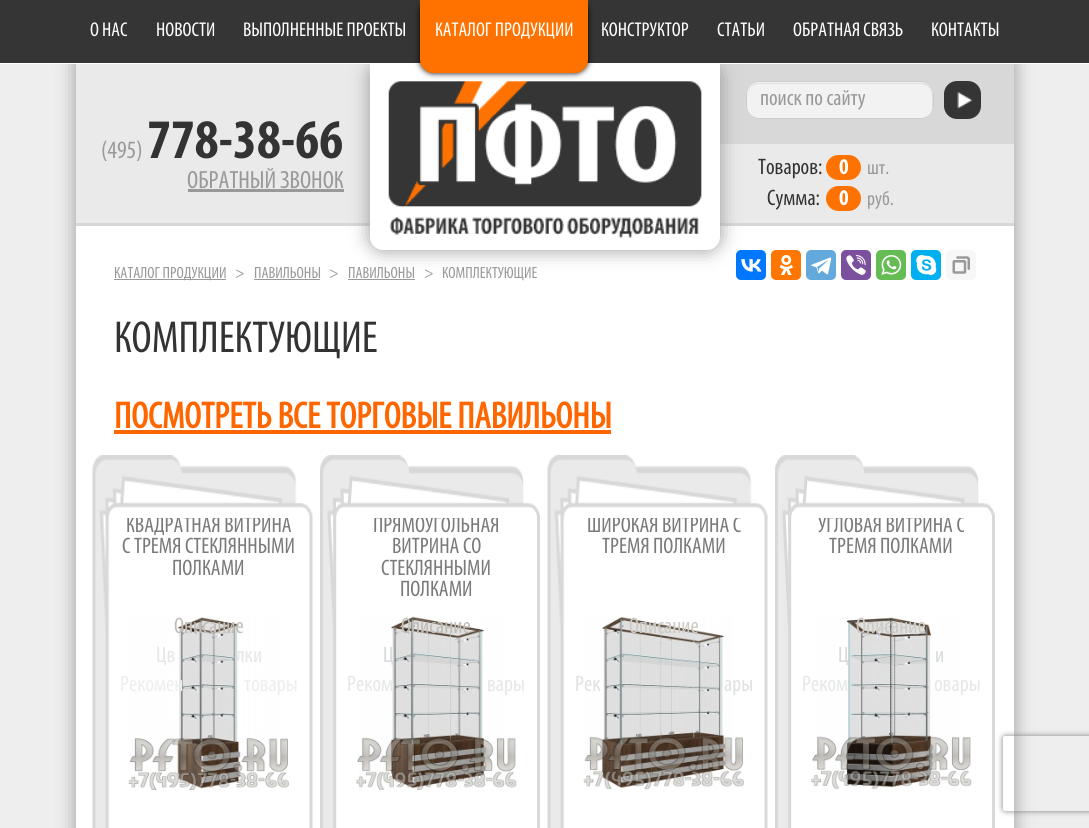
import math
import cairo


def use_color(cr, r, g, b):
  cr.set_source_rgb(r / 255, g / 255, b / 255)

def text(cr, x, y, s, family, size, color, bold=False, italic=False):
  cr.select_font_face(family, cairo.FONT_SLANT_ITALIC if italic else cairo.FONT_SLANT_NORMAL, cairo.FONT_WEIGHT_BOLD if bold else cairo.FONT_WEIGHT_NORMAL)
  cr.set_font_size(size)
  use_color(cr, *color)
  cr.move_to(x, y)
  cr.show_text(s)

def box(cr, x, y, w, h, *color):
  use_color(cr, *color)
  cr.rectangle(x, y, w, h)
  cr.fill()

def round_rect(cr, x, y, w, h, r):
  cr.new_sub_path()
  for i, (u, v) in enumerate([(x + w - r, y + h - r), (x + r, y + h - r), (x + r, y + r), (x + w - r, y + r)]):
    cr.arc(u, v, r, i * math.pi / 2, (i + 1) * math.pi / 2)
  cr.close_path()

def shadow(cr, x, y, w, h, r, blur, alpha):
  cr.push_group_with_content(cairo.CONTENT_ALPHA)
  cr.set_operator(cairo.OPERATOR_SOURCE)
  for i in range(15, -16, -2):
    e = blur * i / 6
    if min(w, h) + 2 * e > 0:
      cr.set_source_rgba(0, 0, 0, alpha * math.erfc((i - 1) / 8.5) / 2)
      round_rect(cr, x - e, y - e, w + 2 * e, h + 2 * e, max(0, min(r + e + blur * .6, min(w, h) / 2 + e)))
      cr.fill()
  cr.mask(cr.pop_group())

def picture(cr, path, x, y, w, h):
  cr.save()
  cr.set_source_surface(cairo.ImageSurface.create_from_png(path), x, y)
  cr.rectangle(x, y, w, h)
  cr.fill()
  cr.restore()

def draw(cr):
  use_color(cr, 238, 238, 238)
  cr.paint()
  use_color(cr, 153, 153, 153)
  shadow(cr, 76, 63, 938, 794, 0, 9.5, 1)
  box(cr, 76, 226, 938, 602, 255, 255, 255)
  box(cr, 76, 64, 938, 159, 234, 234, 234)
  box(cr, 76, 223, 938, 3, 215, 215, 215)
  box(cr, 720, 64, 294, 80, 216, 216, 216)
  use_color(cr, 242, 242, 242)
  round_rect(cr, 746, 81, 188, 38, 13)
  cr.fill()
  use_color(cr, 224, 224, 224)
  cr.new_path()
  cr.move_to(759, 84)
  cr.line_to(921, 84)
  cr.curve_to(927, 84, 932, 89, 932, 95)
  cr.line_to(932, 108)
  cr.curve_to(932, 111, 931, 113, 929, 115)
  cr.curve_to(931, 113, 933, 110, 933, 107)
  cr.line_to(933, 94)
  cr.curve_to(933, 88, 928, 83, 922, 83)
  cr.line_to(759, 83)
  cr.curve_to(753, 83, 748, 88, 748, 94)
  cr.line_to(748, 95)
  cr.curve_to(748, 89, 753, 84, 759, 84)
  cr.close_path()
  cr.fill()
  round_rect(cr, 746.5, 81.5, 187, 37, 12.5)
  use_color(cr, 204, 204, 204)
  cr.set_line_width(1)
  cr.stroke()
  box(cr, 188, 189, 156, 3, 153, 153, 153)
  box(cr, 348, 279, 67, 1, 153, 153, 153)
  use_color(cr, 0, 119, 255)
  round_rect(cr, 736, 250, 30, 30, 5)
  cr.fill()
  picture(cr, "img_03.png", 741, 259, 21, 13)
  use_color(cr, 153, 153, 153)
  shadow(cr, 370, 63, 350, 187, 13, 9.5, 1)
  box(cr, 0, 0, 1089, 63, 53, 53, 53)
  use_color(cr, 255, 255, 255)
  cr.new_path()
  cr.move_to(370, 63)
  cr.line_to(720, 63)
  cr.line_to(720, 237)
  cr.curve_to(720, 244, 714, 250, 707, 250)
  cr.line_to(383, 250)
  cr.curve_to(376, 250, 370, 244, 370, 237)
  cr.close_path()
  cr.fill()
  box(cr, 0, 63, 1089, 1, 255, 255, 255)
  picture(cr, "img_01.png", 388, 81, 314, 157)
  use_color(cr, 0, 0, 0)
  shadow(cr, 420, 0, 168, 73, 13, 3, 1)
  use_color(cr, 255, 114, 0)
  cr.new_path()
  cr.move_to(420, 0)
  cr.line_to(588, 0)
  cr.line_to(588, 60)
  cr.curve_to(588, 67, 582, 73, 575, 73)
  cr.line_to(433, 73)
  cr.curve_to(426, 73, 420, 67, 420, 60)
  cr.close_path()
  cr.fill()
  use_color(cr, 53, 53, 53)
  round_rect(cr, 944, 81, 37, 38, 13)
  cr.fill()
  picture(cr, "img_02.png", 957, 92, 16, 17)
  use_color(cr, 255, 114, 0)
  round_rect(cr, 826, 155, 35, 25, 12.5)
  cr.fill()
  round_rect(cr, 826, 186, 35, 25, 12.5)
  cr.fill()
  box(cr, 114, 279, 112, 1, 153, 153, 153)
  box(cr, 254, 279, 66, 1, 153, 153, 153)
  use_color(cr, 255, 119, 0)
  round_rect(cr, 771, 250, 30, 30, 5)
  cr.fill()
  picture(cr, "img_04.png", 779, 255, 14, 20)
  use_color(cr, 100, 169, 220)
  round_rect(cr, 806, 250, 30, 30, 5)
  cr.fill()
  picture(cr, "img_05.png", 811, 257, 21, 18)
  use_color(cr, 123, 81, 157)
  round_rect(cr, 841, 250, 30, 30, 5)
  cr.fill()
  picture(cr, "img_06.png", 846, 255, 20, 20)
  use_color(cr, 101, 188, 84)
  round_rect(cr, 876, 250, 30, 30, 5)
  cr.fill()
  picture(cr, "img_07.png", 881, 255, 21, 20)
  use_color(cr, 0, 175, 240)
  round_rect(cr, 911, 250, 30, 30, 5)
  cr.fill()
  picture(cr, "img_08.png", 916, 255, 21, 20)
  use_color(cr, 247, 247, 247)
  round_rect(cr, 946, 250, 30, 30, 5)
  cr.fill()
  picture(cr, "img_09.png", 952, 256, 18, 18)
  box(cr, 114, 430, 497, 4, 255, 102, 0)
  picture(cr, "img_10.png", 92, 455, 221, 373)
  picture(cr, "img_11.png", 128, 617, 161, 173)
  picture(cr, "img_12.png", 320, 455, 220, 373)
  picture(cr, "img_13.png", 356, 616, 161, 174)
  picture(cr, "img_10.png", 547, 455, 221, 373)
  picture(cr, "img_14.png", 583, 616, 161, 174)
  picture(cr, "img_12.png", 775, 455, 220, 373)
  picture(cr, "img_15.png", 811, 617, 161, 173)
  cr.save()
  cr.set_fill_rule(cairo.FILL_RULE_EVEN_ODD)
  cr.new_path()
  cr.move_to(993, 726)
  cr.line_to(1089, 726)
  cr.line_to(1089, 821)
  cr.line_to(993, 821)
  cr.close_path()
  cr.move_to(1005.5, 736)
  cr.line_to(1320.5, 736)
  cr.curve_to(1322, 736, 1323, 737, 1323, 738.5)
  cr.line_to(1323, 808.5)
  cr.curve_to(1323, 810, 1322, 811, 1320.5, 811)
  cr.line_to(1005.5, 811)
  cr.curve_to(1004, 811, 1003, 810, 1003, 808.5)
  cr.line_to(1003, 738.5)
  cr.curve_to(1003, 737, 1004, 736, 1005.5, 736)
  cr.close_path()
  cr.clip()
  use_color(cr, 128, 128, 128)
  shadow(cr, 1003, 736, 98, 75, 2.5, 3, 1)
  cr.restore()
  text(cr, 90, 36, "О НАС", "Myriad", 20, (255, 255, 255))
  text(cr, 156, 36, "НОВОСТИ", "Myriad", 20, (255, 255, 255))
  text(cr, 243, 36, "ВЫПОЛНЕННЫЕ ПРОЕКТЫ", "Myriad", 20, (255, 255, 255))
  text(cr, 435, 36, "КАТАЛОГ ПРОДУКЦИИ", "Myriad", 20, (255, 255, 255))
  text(cr, 601, 36, "КОНСТРУКТОР", "Myriad", 20, (255, 255, 255))
  text(cr, 717, 36, "СТАТЬИ", "Myriad", 20, (255, 255, 255))
  text(cr, 793, 36, "ОБРАТНАЯ СВЯЗЬ", "Myriad", 20, (255, 255, 255))
  text(cr, 931, 36, "КОНТАКТЫ", "Myriad", 20, (255, 255, 255))
  text(cr, 760, 105, "поиск по сайту", "Myriad", 22.5, (153, 153, 153))
  text(cr, 101, 158, "(495)", "Myriad", 25, (153, 153, 153))
  text(cr, 147, 158, "778-38-66", "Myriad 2", 56, (51, 51, 51), bold=True)
  text(cr, 187, 188, "ОБРАТНЫЙ ЗВОНОК", "Myriad", 25, (153, 153, 153))
  text(cr, 758, 174, "Товаров:", "Myriad", 22.5, (51, 51, 51))
  text(cr, 839, 174, "0", "Myriad 2", 22.5, (255, 255, 255), bold=True)
  text(cr, 867, 174, "шт.", "Myriad", 20, (153, 153, 153))
  text(cr, 767, 205, "Сумма:", "Myriad", 22.5, (51, 51, 51))
  text(cr, 839, 205, "0", "Myriad 2", 22.5, (255, 255, 255), bold=True)
  text(cr, 867, 205, "руб.", "Myriad", 20, (153, 153, 153))
  text(cr, 114, 278, "КАТАЛОГ ПРОДУКЦИИ", "Myriad", 16.25, (153, 153, 153))
  text(cr, 235, 278, ">", "Myriad", 16.25, (153, 153, 153))
  text(cr, 254, 278, "ПАВИЛЬОНЫ", "Myriad", 16.25, (153, 153, 153))
  text(cr, 329, 278, ">", "Myriad", 16.25, (153, 153, 153))
  text(cr, 348, 278, "ПАВИЛЬОНЫ", "Myriad", 16.25, (153, 153, 153))
  text(cr, 424, 278, ">", "Myriad", 16.25, (153, 153, 153))
  text(cr, 442, 278, "КОМПЛЕКТУЮЩИЕ", "Myriad", 16.25, (153, 153, 153))
  text(cr, 114, 352, "КОМПЛЕКТУЮЩИЕ", "Myriad", 45, (51, 51, 51))
  text(cr, 114, 428, "ПОСМОТРЕТЬ ВСЕ ТОРГОВЫЕ ПАВИЛЬОНЫ", "Myriad", 37.5, (255, 102, 0), bold=True)
  cr.save()
  cr.rectangle(121, 518, 175, 85)
  cr.clip()
  text(cr, 126, 532, "КВАДРАТНАЯ ВИТРИНА", "Myriad", 22.5, (122, 122, 122))
  cr.restore()
  text(cr, 122, 553, "С ТРЕМЯ СТЕКЛЯННЫМИ", "Myriad", 22.5, (122, 122, 122))
  text(cr, 172, 575, "ПОЛКАМИ", "Myriad", 22.5, (122, 122, 122))
  text(cr, 174, 633, "Описание", "Myriad", 22.5, (192, 188, 184))
  text(cr, 156, 662, "Цв", "Myriad", 22.5, (230, 231, 231))
  text(cr, 236, 662, "лки", "Myriad", 22.5, (230, 231, 231))
  text(cr, 120, 691, "Рекомен", "Myriad", 22.5, (237, 238, 238))
  text(cr, 244, 691, "товары", "Myriad", 22.5, (237, 238, 238))
  cr.save()
  cr.rectangle(349, 518, 175, 85)
  cr.clip()
  text(cr, 373, 532, "ПРЯМОУГОЛЬНАЯ", "Myriad", 22.5, (122, 122, 122))
  cr.restore()
  text(cr, 392, 553, "ВИТРИНА СО", "Myriad", 22.5, (122, 122, 122))
  text(cr, 381, 575, "СТЕКЛЯННЫМИ", "Myriad", 22.5, (122, 122, 122))
  text(cr, 400, 596, "ПОЛКАМИ", "Myriad", 22.5, (122, 122, 122))
  text(cr, 401, 633, "Описание", "Myriad", 22.5, (192, 188, 184))
  text(cr, 383, 662, "Ц", "Myriad", 22.5, (216, 219, 219))
  text(cr, 347, 691, "Реком", "Myriad", 22.5, (230, 231, 231))
  text(cr, 487, 691, "вары", "Myriad", 22.5, (230, 231, 231))
  cr.save()
  cr.rectangle(576, 518, 175, 85)
  cr.clip()
  text(cr, 587, 532, "ШИРОКАЯ ВИТРИНА С", "Myriad", 22.5, (122, 122, 122))
  cr.restore()
  text(cr, 602, 553, "ТРЕМЯ ПОЛКАМИ", "Myriad", 22.5, (122, 122, 122))
  text(cr, 629, 633, "Описание", "Myriad", 22.5, (205, 201, 197))
  text(cr, 575, 691, "Рек", "Myriad", 22.5, (224, 225, 225))
  text(cr, 724, 691, "ары", "Myriad", 22.5, (224, 225, 225))
  cr.save()
  cr.rectangle(804, 518, 175, 85)
  cr.clip()
  text(cr, 818, 532, "УГЛОВАЯ ВИТРИНА С", "Myriad", 22.5, (122, 122, 122))
  cr.restore()
  text(cr, 829, 553, "ТРЕМЯ ПОЛКАМИ", "Myriad", 22.5, (122, 122, 122))
  text(cr, 856, 633, "Описание", "Myriad", 22.5, (205, 201, 197))
  text(cr, 838, 662, "Ц", "Myriad", 22.5, (216, 219, 219))
  text(cr, 935, 662, "и", "Myriad", 22.5, (216, 219, 219))
  text(cr, 802, 691, "Реком", "Myriad", 22.5, (230, 231, 231))
  text(cr, 934, 691, "овары", "Myriad", 22.5, (230, 231, 231))


surface = cairo.ImageSurface(cairo.FORMAT_RGB24, 1089, 828)
cr = cairo.Context(surface)
options = cairo.FontOptions()
options.set_hint_metrics(cairo.HINT_METRICS_OFF)
options.set_hint_style(cairo.HINT_STYLE_NONE)
cr.set_font_options(options)
cr.set_miter_limit(4)
draw(cr)
surface.write_to_png("out.png")
